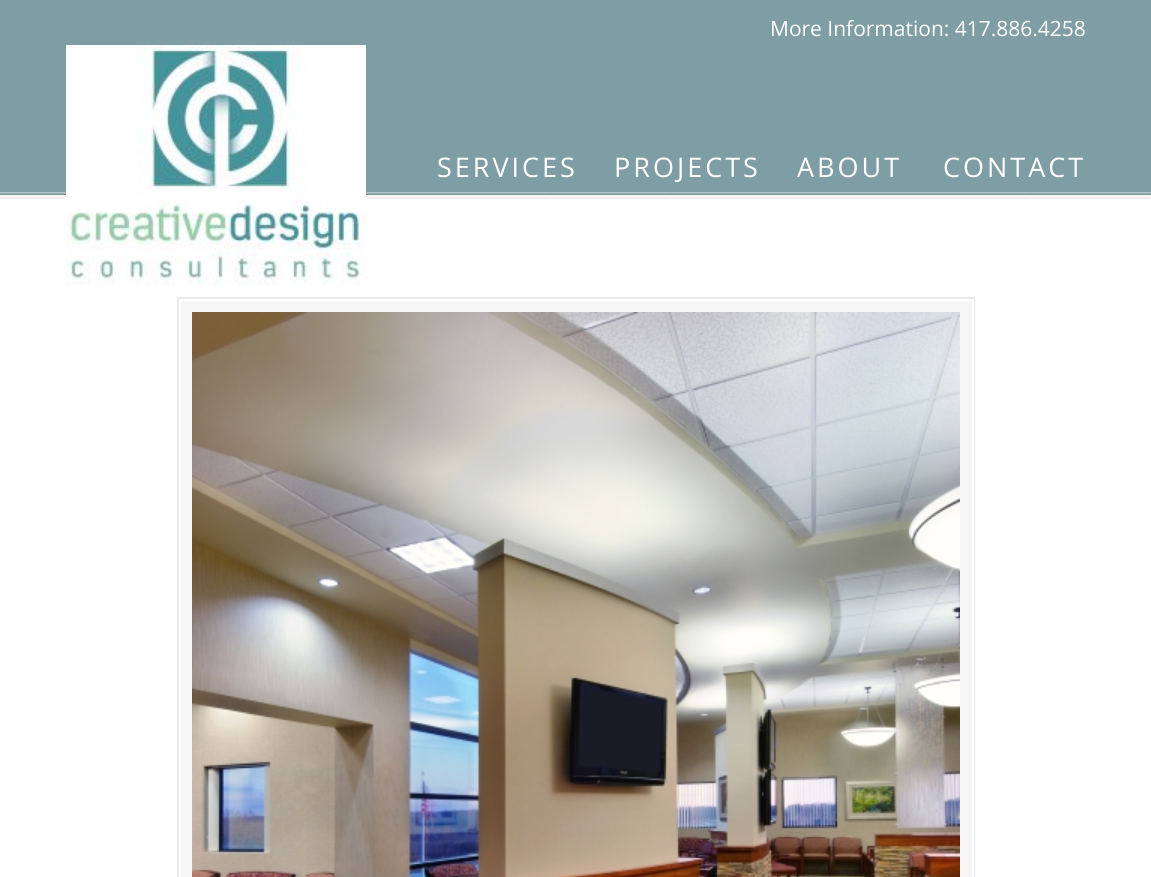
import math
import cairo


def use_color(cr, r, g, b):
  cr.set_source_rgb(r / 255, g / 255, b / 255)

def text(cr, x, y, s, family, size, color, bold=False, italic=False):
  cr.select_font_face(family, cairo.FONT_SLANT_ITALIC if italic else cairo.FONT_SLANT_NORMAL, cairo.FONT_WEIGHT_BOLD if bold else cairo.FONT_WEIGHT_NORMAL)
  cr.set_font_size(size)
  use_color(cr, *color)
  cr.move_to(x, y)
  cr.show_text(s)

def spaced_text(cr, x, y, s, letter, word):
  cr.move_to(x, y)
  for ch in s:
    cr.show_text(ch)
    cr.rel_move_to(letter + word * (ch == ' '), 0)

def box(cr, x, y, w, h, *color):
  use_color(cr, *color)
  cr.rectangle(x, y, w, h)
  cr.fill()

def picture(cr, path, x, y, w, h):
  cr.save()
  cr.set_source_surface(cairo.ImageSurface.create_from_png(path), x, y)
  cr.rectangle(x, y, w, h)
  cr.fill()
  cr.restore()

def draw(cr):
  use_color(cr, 255, 255, 255)
  cr.paint()
  box(cr, 0, 0, 1151, 195, 127, 157, 164)
  picture(cr, "img_02.png", 0, 192, 1151, 3)
  box(cr, 0, 196, 1151, 3, 242, 242, 242)
  picture(cr, "img_01.png", 66, 45, 300, 241)
  box(cr, 181, 301, 791, 576, 246, 246, 246)
  cr.rectangle(178, 298, 796, 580)
  use_color(cr, 234, 234, 234)
  cr.stroke()
  cr.rectangle(180, 300, 793, 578)
  use_color(cr, 255, 255, 255)
  cr.stroke()
  picture(cr, "img_03.png", 192, 312, 768, 565)
  text(cr, 770, 36, "More Information: 417.886.4258", "Open Sans", 21, (255, 255, 255))
  cr.set_font_size(27)
  spaced_text(cr, 437, 177, "SERVICES", 3, 0)
  spaced_text(cr, 614, 177, "PROJECTS", 3, 0)
  spaced_text(cr, 797, 177, "ABOUT", 3, 0)
  spaced_text(cr, 943, 177, "CONTACT", 3, 0)


surface = cairo.ImageSurface(cairo.FORMAT_RGB24, 1151, 877)
cr = cairo.Context(surface)
options = cairo.FontOptions()
options.set_hint_metrics(cairo.HINT_METRICS_OFF)
options.set_hint_style(cairo.HINT_STYLE_NONE)
cr.set_font_options(options)
cr.set_miter_limit(4)
draw(cr)
surface.write_to_png("out.png")
